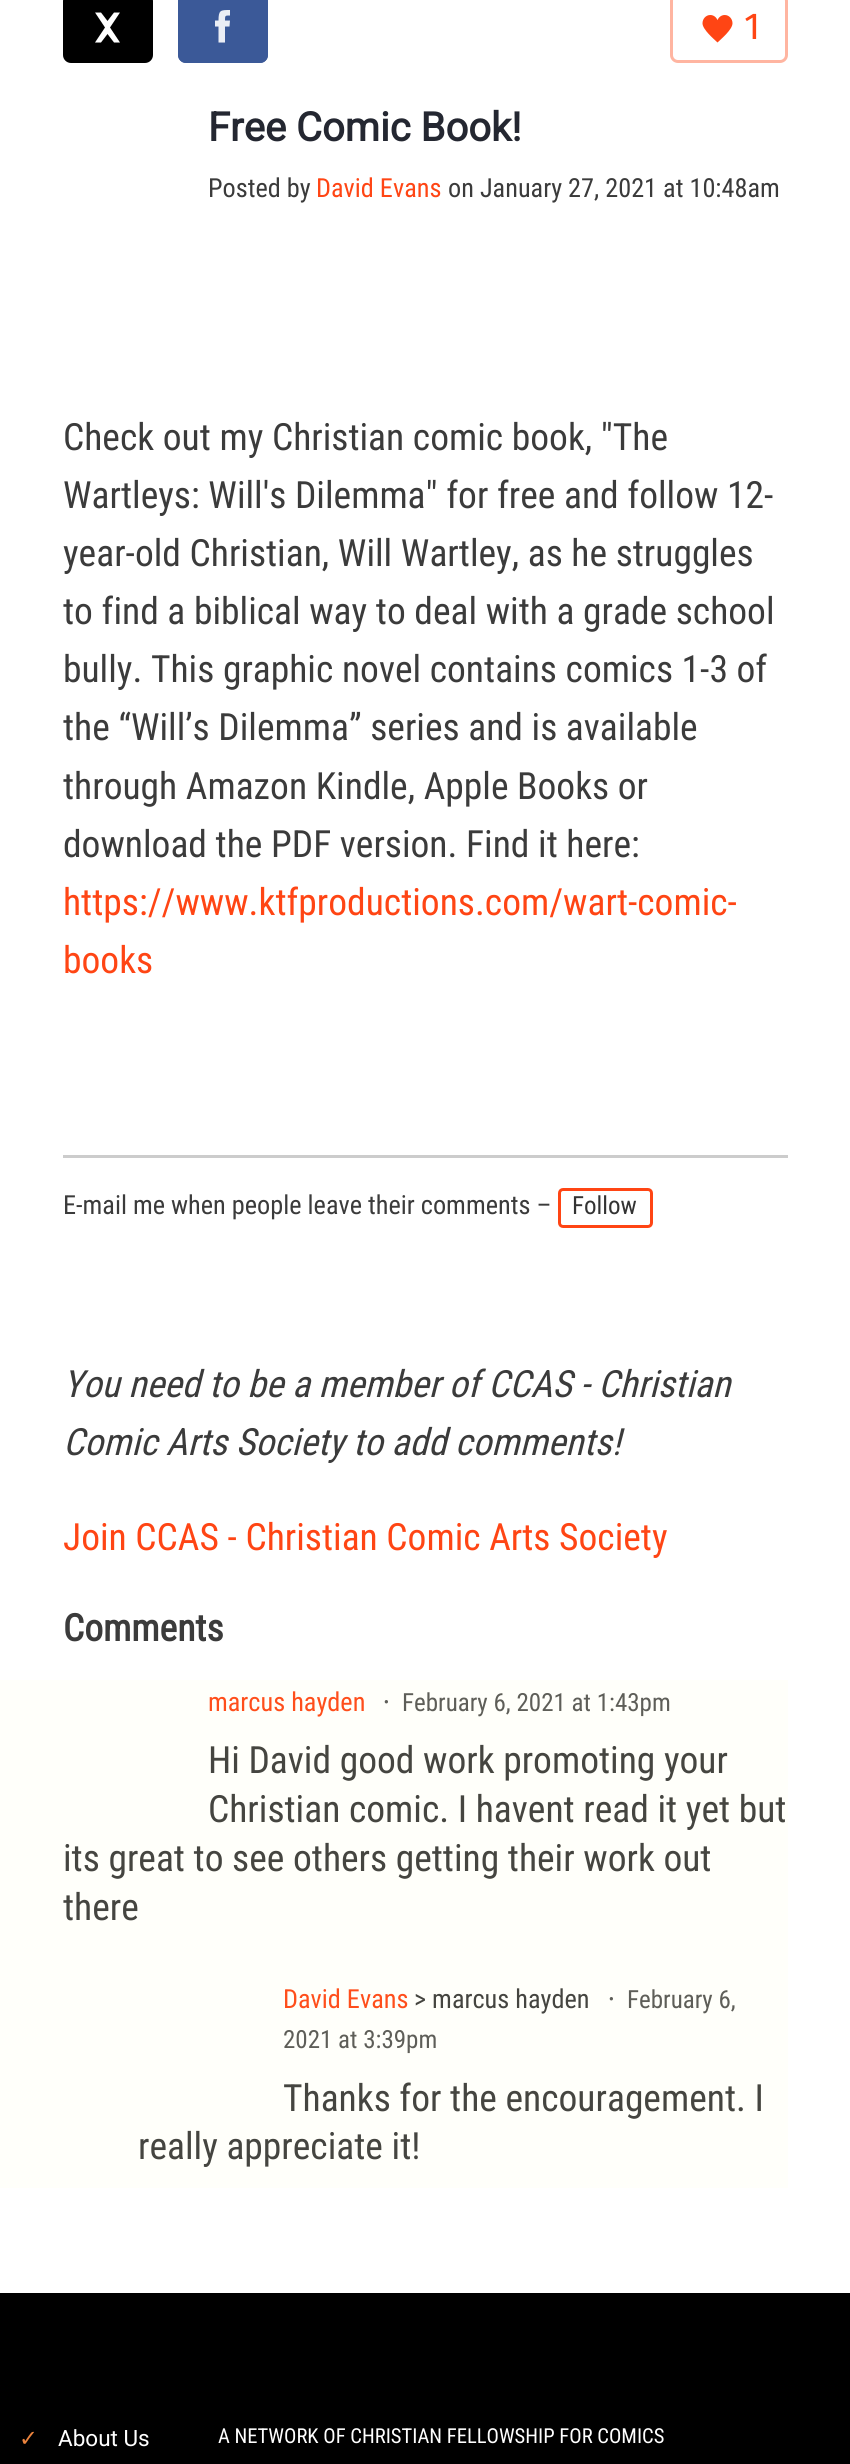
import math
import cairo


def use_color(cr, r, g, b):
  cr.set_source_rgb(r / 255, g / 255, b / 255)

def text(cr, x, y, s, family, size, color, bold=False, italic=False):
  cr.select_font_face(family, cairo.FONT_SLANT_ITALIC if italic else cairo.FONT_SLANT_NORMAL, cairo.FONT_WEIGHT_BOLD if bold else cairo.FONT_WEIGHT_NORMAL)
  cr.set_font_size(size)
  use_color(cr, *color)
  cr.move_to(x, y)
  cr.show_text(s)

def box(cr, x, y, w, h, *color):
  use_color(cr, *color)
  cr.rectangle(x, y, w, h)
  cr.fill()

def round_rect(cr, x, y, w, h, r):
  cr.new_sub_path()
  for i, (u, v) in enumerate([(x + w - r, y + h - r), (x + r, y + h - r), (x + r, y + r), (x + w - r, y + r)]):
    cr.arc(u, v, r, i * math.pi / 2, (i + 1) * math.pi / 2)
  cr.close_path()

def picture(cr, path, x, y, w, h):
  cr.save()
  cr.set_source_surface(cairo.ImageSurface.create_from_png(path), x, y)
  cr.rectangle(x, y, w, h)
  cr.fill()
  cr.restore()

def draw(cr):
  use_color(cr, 255, 255, 255)
  cr.paint()
  box(cr, 0, 1680, 788, 508, 255, 255, 250)
  use_color(cr, 0, 0, 0)
  round_rect(cr, 63, -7, 90, 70, 8)
  cr.fill()
  use_color(cr, 255, 255, 255)
  cr.set_fill_rule(cairo.FILL_RULE_EVEN_ODD)
  cr.new_path()
  cr.move_to(95, 12.5)
  cr.line_to(105, 27.5)
  cr.line_to(95, 42.5)
  cr.line_to(101, 42.5)
  cr.line_to(107.5, 34)
  cr.line_to(114, 42.5)
  cr.line_to(120, 42.5)
  cr.line_to(110, 27.5)
  cr.line_to(120, 12.5)
  cr.line_to(114, 12.5)
  cr.line_to(107.5, 21)
  cr.line_to(101, 12.5)
  cr.close_path()
  cr.fill()
  use_color(cr, 59, 89, 152)
  round_rect(cr, 178, -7, 90, 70, 8)
  cr.fill()
  cr.set_source_rgba(0.231, 0.349, 0.596, 0.9)
  round_rect(cr, 178, -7, 90, 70, 8)
  cr.fill()
  use_color(cr, 235, 238, 245)
  cr.set_fill_rule(cairo.FILL_RULE_WINDING)
  cr.new_path()
  cr.move_to(225, 42.5)
  cr.line_to(225, 26.5)
  cr.line_to(229.5, 26.5)
  cr.line_to(230, 20.5)
  cr.line_to(225, 20.5)
  cr.curve_to(225, 15.5, 225, 15.5, 230, 15.5)
  cr.line_to(230, 10)
  cr.curve_to(220.5, 10, 218.5, 10, 218.5, 20.5)
  cr.line_to(215, 20.5)
  cr.line_to(215, 26.5)
  cr.line_to(218.5, 26.5)
  cr.line_to(218.5, 42.5)
  cr.close_path()
  cr.fill()
  round_rect(cr, 671.5, -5.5, 115, 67, 6.5)
  use_color(cr, 255, 181, 161)
  cr.set_line_width(3)
  cr.stroke()
  picture(cr, "img_01.png", 702, 15, 31, 28)
  box(cr, 63, 1155, 725, 3, 204, 204, 204)
  round_rect(cr, 559.5, 1189.5, 92, 37, 3.5)
  use_color(cr, 255, 69, 20)
  cr.stroke()
  box(cr, 0, 2293, 850, 171, 0, 0, 0)
  text(cr, 744, 39, "1", "Fira Sans", 37.5, (255, 69, 20))
  text(cr, 208, 141, "Free Comic Book!", "Roboto", 40, (36, 39, 49), bold=True)
  text(cr, 208, 197, "Posted by", "Roboto Condensed", 26.25, (59, 59, 59))
  text(cr, 316, 197, "David Evans", "Roboto Condensed", 26.25, (255, 69, 20))
  text(cr, 448, 197, "on January 27, 2021 at 10:48am", "Roboto Condensed", 26.25, (59, 59, 59))
  text(cr, 63, 450, "Check out my Christian comic book, \"The", "Roboto Condensed", 37.5, (59, 59, 59))
  text(cr, 63, 508, "Wartleys: Will's Dilemma\" for free and follow 12-", "Roboto Condensed", 37.5, (59, 59, 59))
  text(cr, 63, 566, "year-old Christian, Will Wartley, as he struggles", "Roboto Condensed", 37.5, (59, 59, 59))
  text(cr, 63, 624, "to find a biblical way to deal with a grade school", "Roboto Condensed", 37.5, (59, 59, 59))
  text(cr, 63, 682, "bully. This graphic novel contains comics 1-3 of", "Roboto Condensed", 37.5, (59, 59, 59))
  text(cr, 63, 740, "the “Will’s Dilemma” series and is available", "Roboto Condensed", 37.5, (59, 59, 59))
  text(cr, 63, 799, "through Amazon Kindle, Apple Books or", "Roboto Condensed", 37.5, (59, 59, 59))
  text(cr, 63, 857, "download the PDF version. Find it here:", "Roboto Condensed", 37.5, (59, 59, 59))
  text(cr, 63, 915, "https://www.ktfproductions.com/wart-comic-", "Roboto Condensed", 37.5, (255, 69, 20))
  text(cr, 63, 973, "books", "Roboto Condensed", 37.5, (255, 69, 20))
  text(cr, 63, 1214, "E-mail me when people leave their comments –", "Roboto Condensed", 26.25, (59, 59, 59))
  text(cr, 572, 1214, "Follow", "Roboto Condensed", 25, (51, 51, 51))
  text(cr, 63, 1397, "You need to be a member of CCAS - Christian", "Roboto Condensed", 37.5, (59, 59, 59), italic=True)
  text(cr, 63, 1455, "Comic Arts Society to add comments!", "Roboto Condensed", 37.5, (59, 59, 59), italic=True)
  text(cr, 63, 1550, "Join CCAS - Christian Comic Arts Society", "Roboto Condensed", 37.5, (255, 69, 20))
  text(cr, 63, 1641, "Comments", "Roboto Condensed", 37.5, (59, 59, 59), bold=True)
  text(cr, 208, 1711, "marcus hayden", "Roboto Condensed", 26.25, (255, 78, 27))
  text(cr, 383, 1711, "·", "Roboto Condensed", 25, (94, 94, 88), bold=True)
  text(cr, 402, 1711, "February 6, 2021 at 1:43pm", "Roboto Condensed", 25, (94, 94, 88))
  text(cr, 208, 1773, "Hi David good work promoting your", "Roboto Condensed", 37.5, (69, 69, 64))
  text(cr, 208, 1822, "Christian comic. I havent read it yet but", "Roboto Condensed", 37.5, (69, 69, 64))
  text(cr, 63, 1871, "its great to see others getting their work out", "Roboto Condensed", 37.5, (69, 69, 64))
  cr.save()
  cr.rectangle(63, 1680, 725, 268)
  cr.clip()
  text(cr, 63, 1920, "there", "Roboto Condensed", 37.5, (69, 69, 64))
  cr.restore()
  text(cr, 283, 2008, "David Evans", "Roboto Condensed", 26.25, (255, 78, 27))
  text(cr, 414, 2008, "> marcus hayden", "Roboto Condensed", 26.25, (69, 69, 64))
  text(cr, 608, 2008, "·", "Roboto Condensed", 25, (94, 94, 88), bold=True)
  text(cr, 627, 2008, "February 6,", "Roboto Condensed", 25, (94, 94, 88))
  text(cr, 283, 2048, "2021 at 3:39pm", "Roboto Condensed", 25, (94, 94, 88))
  text(cr, 283, 2111, "Thanks for the encouragement. I", "Roboto Condensed", 37.5, (69, 69, 64))
  text(cr, 138, 2159, "really appreciate it!", "Roboto Condensed", 37.5, (69, 69, 64))
  text(cr, 19, 2446, "✓", "DejaVu Sans", 22.5, (234, 131, 61))
  text(cr, 58, 2446, "About Us", "Roboto", 22.5, (255, 255, 255))
  text(cr, 218, 2443, "A NETWORK OF CHRISTIAN FELLOWSHIP FOR COMICS", "Roboto Condensed", 20.6, (255, 255, 255))


surface = cairo.ImageSurface(cairo.FORMAT_RGB24, 850, 2464)
cr = cairo.Context(surface)
options = cairo.FontOptions()
options.set_hint_metrics(cairo.HINT_METRICS_OFF)
options.set_hint_style(cairo.HINT_STYLE_NONE)
cr.set_font_options(options)
cr.set_miter_limit(4)
draw(cr)
surface.write_to_png("out.png")
